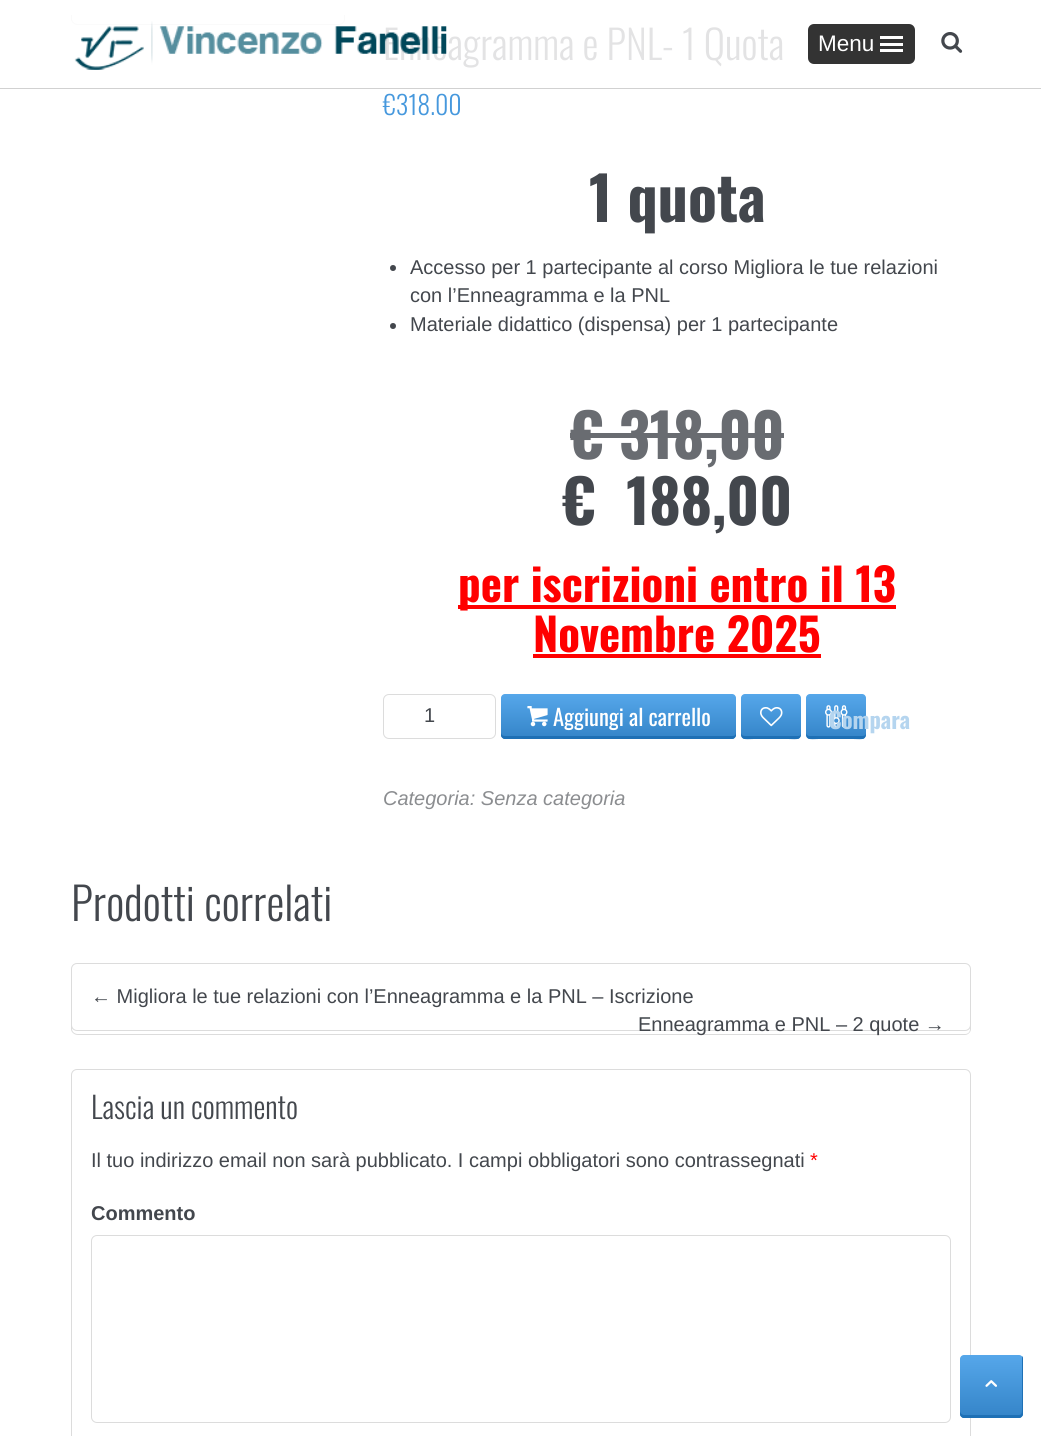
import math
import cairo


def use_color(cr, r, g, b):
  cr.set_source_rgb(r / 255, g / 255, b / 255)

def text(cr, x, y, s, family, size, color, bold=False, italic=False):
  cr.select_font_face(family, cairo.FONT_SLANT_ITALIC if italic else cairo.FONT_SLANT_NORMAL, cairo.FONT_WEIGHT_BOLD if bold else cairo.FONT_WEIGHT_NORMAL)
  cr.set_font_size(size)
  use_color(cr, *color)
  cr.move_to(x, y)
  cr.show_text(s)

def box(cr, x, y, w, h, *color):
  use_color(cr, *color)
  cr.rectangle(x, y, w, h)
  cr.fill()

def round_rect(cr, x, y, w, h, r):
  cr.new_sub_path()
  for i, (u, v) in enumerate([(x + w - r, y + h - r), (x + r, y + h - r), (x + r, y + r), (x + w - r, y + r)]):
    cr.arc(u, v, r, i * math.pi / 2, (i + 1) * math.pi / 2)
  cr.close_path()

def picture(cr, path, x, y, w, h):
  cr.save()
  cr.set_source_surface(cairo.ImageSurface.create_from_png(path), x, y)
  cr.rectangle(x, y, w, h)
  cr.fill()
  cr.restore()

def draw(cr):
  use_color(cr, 255, 255, 255)
  cr.paint()
  use_color(cr, 250, 250, 250)
  cr.set_fill_rule(cairo.FILL_RULE_EVEN_ODD)
  cr.new_path()
  cr.move_to(71, 15)
  cr.line_to(345, 15)
  cr.line_to(345, 19)
  cr.curve_to(345, 22, 342, 25, 339, 25)
  cr.line_to(78, 25)
  cr.curve_to(74, 25, 71, 22, 71, 19)
  cr.close_path()
  cr.move_to(72, 15)
  cr.line_to(344, 15)
  cr.line_to(344, 19)
  cr.curve_to(344, 22, 342, 24, 339, 24)
  cr.line_to(78, 24)
  cr.curve_to(75, 24, 72, 22, 72, 19)
  cr.close_path()
  cr.fill()
  use_color(cr, 67, 71, 77)
  cr.arc(393, 268, 3, 0, 2 * math.pi)
  cr.fill()
  cr.arc(393, 326, 3, 0, 2 * math.pi)
  cr.fill()
  box(cr, 570, 433, 214, 5, 105, 108, 113)
  box(cr, 458, 605, 438, 4, 255, 0, 0)
  box(cr, 533, 654, 288, 4, 255, 0, 0)
  round_rect(cr, 383.5, 694.5, 112, 44, 5.5)
  use_color(cr, 220, 220, 220)
  cr.set_line_width(1)
  cr.stroke()
  gradient = cairo.LinearGradient(619, 694, 619, 739)
  gradient.add_color_stop_rgba(0, 0.337, 0.655, 0.918, 1)
  gradient.add_color_stop_rgba(1, 0.204, 0.518, 0.784, 1)
  cr.set_source(gradient)
  round_rect(cr, 501, 694, 235, 45, 4)
  cr.fill()
  use_color(cr, 30, 112, 181)
  cr.set_fill_rule(cairo.FILL_RULE_WINDING)
  cr.new_path()
  cr.move_to(501, 732)
  cr.line_to(501, 735)
  cr.curve_to(501, 737, 503, 739, 505, 739)
  cr.line_to(732, 739)
  cr.curve_to(734, 739, 736, 737, 736, 735)
  cr.line_to(736, 732)
  cr.curve_to(736, 735, 735, 736, 732, 736)
  cr.line_to(505, 736)
  cr.curve_to(503, 736, 501, 735, 501, 732)
  cr.close_path()
  cr.fill()
  picture(cr, "img_01.png", 527, 706, 21, 21)
  gradient = cairo.LinearGradient(771, 694, 771, 739)
  gradient.add_color_stop_rgba(0, 0.337, 0.655, 0.918, 1)
  gradient.add_color_stop_rgba(1, 0.204, 0.518, 0.784, 1)
  cr.set_source(gradient)
  round_rect(cr, 741, 694, 60, 45, 4)
  cr.fill()
  use_color(cr, 30, 112, 181)
  cr.new_path()
  cr.move_to(741, 732)
  cr.curve_to(741, 741, 745, 739, 754, 739)
  cr.line_to(788, 739)
  cr.curve_to(797, 739, 801, 741, 801, 732)
  cr.curve_to(801, 735, 800, 736, 798, 736)
  cr.line_to(745, 736)
  cr.curve_to(743, 736, 741, 735, 741, 732)
  cr.close_path()
  cr.fill()
  picture(cr, "img_02.png", 760, 707, 23, 20)
  gradient = cairo.LinearGradient(836, 694, 836, 739)
  gradient.add_color_stop_rgba(0, 0.337, 0.655, 0.918, 1)
  gradient.add_color_stop_rgba(1, 0.204, 0.518, 0.784, 1)
  cr.set_source(gradient)
  round_rect(cr, 806, 694, 60, 45, 4)
  cr.fill()
  use_color(cr, 30, 112, 181)
  cr.new_path()
  cr.move_to(806, 732)
  cr.curve_to(806, 741, 810, 739, 819, 739)
  cr.line_to(853, 739)
  cr.curve_to(862, 739, 866, 741, 866, 732)
  cr.curve_to(866, 735, 865, 736, 862, 736)
  cr.line_to(810, 736)
  cr.curve_to(808, 736, 806, 735, 806, 732)
  cr.close_path()
  cr.fill()
  picture(cr, "img_03.png", 825, 705, 23, 23)
  use_color(cr, 220, 220, 220)
  cr.set_fill_rule(cairo.FILL_RULE_EVEN_ODD)
  cr.new_path()
  cr.move_to(71, 1025)
  cr.line_to(971, 1025)
  cr.line_to(971, 1029)
  cr.curve_to(971, 1032, 968, 1035, 965, 1035)
  cr.line_to(78, 1035)
  cr.curve_to(74, 1035, 71, 1032, 71, 1029)
  cr.close_path()
  cr.move_to(72, 1025)
  cr.line_to(970, 1025)
  cr.line_to(970, 1029)
  cr.curve_to(970, 1032, 968, 1034, 965, 1034)
  cr.line_to(78, 1034)
  cr.curve_to(75, 1034, 72, 1032, 72, 1029)
  cr.close_path()
  cr.fill()
  round_rect(cr, 71.5, 963.5, 899, 67, 5.5)
  cr.stroke()
  round_rect(cr, 71.5, 1069.5, 899, 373, 5.5)
  cr.stroke()
  round_rect(cr, 91.5, 1235.5, 859, 187, 5.5)
  cr.stroke()
  box(cr, 0, 88, 1041, 1, 209, 209, 209)
  use_color(cr, 51, 51, 51)
  round_rect(cr, 808, 24, 107, 40, 6)
  cr.fill()
  box(cr, 880, 36, 23, 3, 255, 255, 255)
  box(cr, 880, 43, 23, 3, 255, 255, 255)
  box(cr, 880, 49, 23, 3, 255, 255, 255)
  picture(cr, "img_05.png", 941, 32, 22, 21)
  gradient = cairo.LinearGradient(991, 1355, 991, 1418)
  gradient.add_color_stop_rgba(0, 0.337, 0.655, 0.918, 1)
  gradient.add_color_stop_rgba(1, 0.204, 0.518, 0.784, 1)
  cr.set_source(gradient)
  round_rect(cr, 960, 1355, 63, 63, 4)
  cr.fill()
  use_color(cr, 30, 112, 181)
  cr.set_fill_rule(cairo.FILL_RULE_WINDING)
  cr.new_path()
  cr.move_to(960, 1411)
  cr.line_to(960, 1414)
  cr.curve_to(960, 1416, 962, 1418, 964, 1418)
  cr.line_to(1019, 1418)
  cr.curve_to(1021, 1418, 1023, 1416, 1023, 1414)
  cr.line_to(1023, 1359)
  cr.curve_to(1023, 1358, 1023, 1357, 1022, 1356)
  cr.line_to(1022, 1411)
  cr.curve_to(1022, 1413, 1021, 1415, 1019, 1415)
  cr.line_to(964, 1415)
  cr.curve_to(962, 1415, 960, 1413, 960, 1411)
  cr.close_path()
  cr.fill()
  picture(cr, "img_06.png", 985, 1380, 12, 7)
  text(cr, 383, 60, "Enneagramma e PNL- 1 Quota", "Oswald Light", 40, (227, 227, 228))
  text(cr, 383, 115, "€318.00", "Oswald Light", 26, (70, 152, 221))
  text(cr, 589, 222, "1 quota", "Oswald", 60, (67, 71, 77), bold=True)
  text(cr, 410, 274, "Accesso per 1 partecipante al corso Migliora le tue relazioni", "Liberation Sans", 20, (67, 71, 77))
  text(cr, 410, 302, "con l’Enneagramma e la PNL", "Liberation Sans", 20, (67, 71, 77))
  text(cr, 410, 331, "Materiale didattico (dispensa) per 1 partecipante", "Liberation Sans", 20, (67, 71, 77))
  text(cr, 570, 459, "€ 318,00", "Oswald", 60, (105, 108, 113), bold=True)
  text(cr, 562, 525, "€  188,00", "Oswald", 60, (67, 71, 77), bold=True)
  text(cr, 458, 602, "per iscrizioni entro il 13", "Oswald", 45, (255, 0, 0), bold=True)
  text(cr, 533, 652, "Novembre 2025", "Oswald", 45, (255, 0, 0), bold=True)
  text(cr, 424, 722, "1", "Liberation Sans", 20, (67, 71, 77))
  text(cr, 553, 726, "Aggiungi al carrello", "Oswald", 22.5, (255, 255, 255))
  text(cr, 829, 729, "Compara", "Oswald", 22.5, (181, 213, 239), bold=True)
  text(cr, 383, 805, "Categoria: Senza categoria", "Liberation Sans", 20, (139, 141, 144), italic=True)
  text(cr, 71, 921, "Prodotti correlati", "Oswald Light", 45, (67, 71, 77))
  text(cr, 91, 1003, "← Migliora le tue relazioni con l’Enneagramma e la PNL – Iscrizione", "Liberation Sans", 20, (67, 71, 77))
  text(cr, 638, 1031, "Enneagramma e PNL – 2 quote →", "Liberation Sans", 20, (67, 71, 77))
  text(cr, 91, 1119, "Lascia un commento", "Oswald Light", 30, (67, 71, 77))
  text(cr, 91, 1167, "Il tuo indirizzo email non sarà pubblicato. I campi obbligatori sono contrassegnati", "Liberation Sans", 20, (67, 71, 77))
  text(cr, 810, 1167, "*", "Liberation Sans", 20, (255, 0, 0))
  text(cr, 91, 1220, "Commento", "Liberation Sans", 20, (67, 71, 77), bold=True)
  picture(cr, "img_04.png", 74, 21, 373, 49)
  text(cr, 818, 51, "Menu", "Liberation Sans", 22.5, (255, 255, 255))


surface = cairo.ImageSurface(cairo.FORMAT_RGB24, 1041, 1436)
cr = cairo.Context(surface)
options = cairo.FontOptions()
options.set_hint_metrics(cairo.HINT_METRICS_OFF)
options.set_hint_style(cairo.HINT_STYLE_NONE)
cr.set_font_options(options)
cr.set_miter_limit(4)
draw(cr)
surface.write_to_png("out.png")
